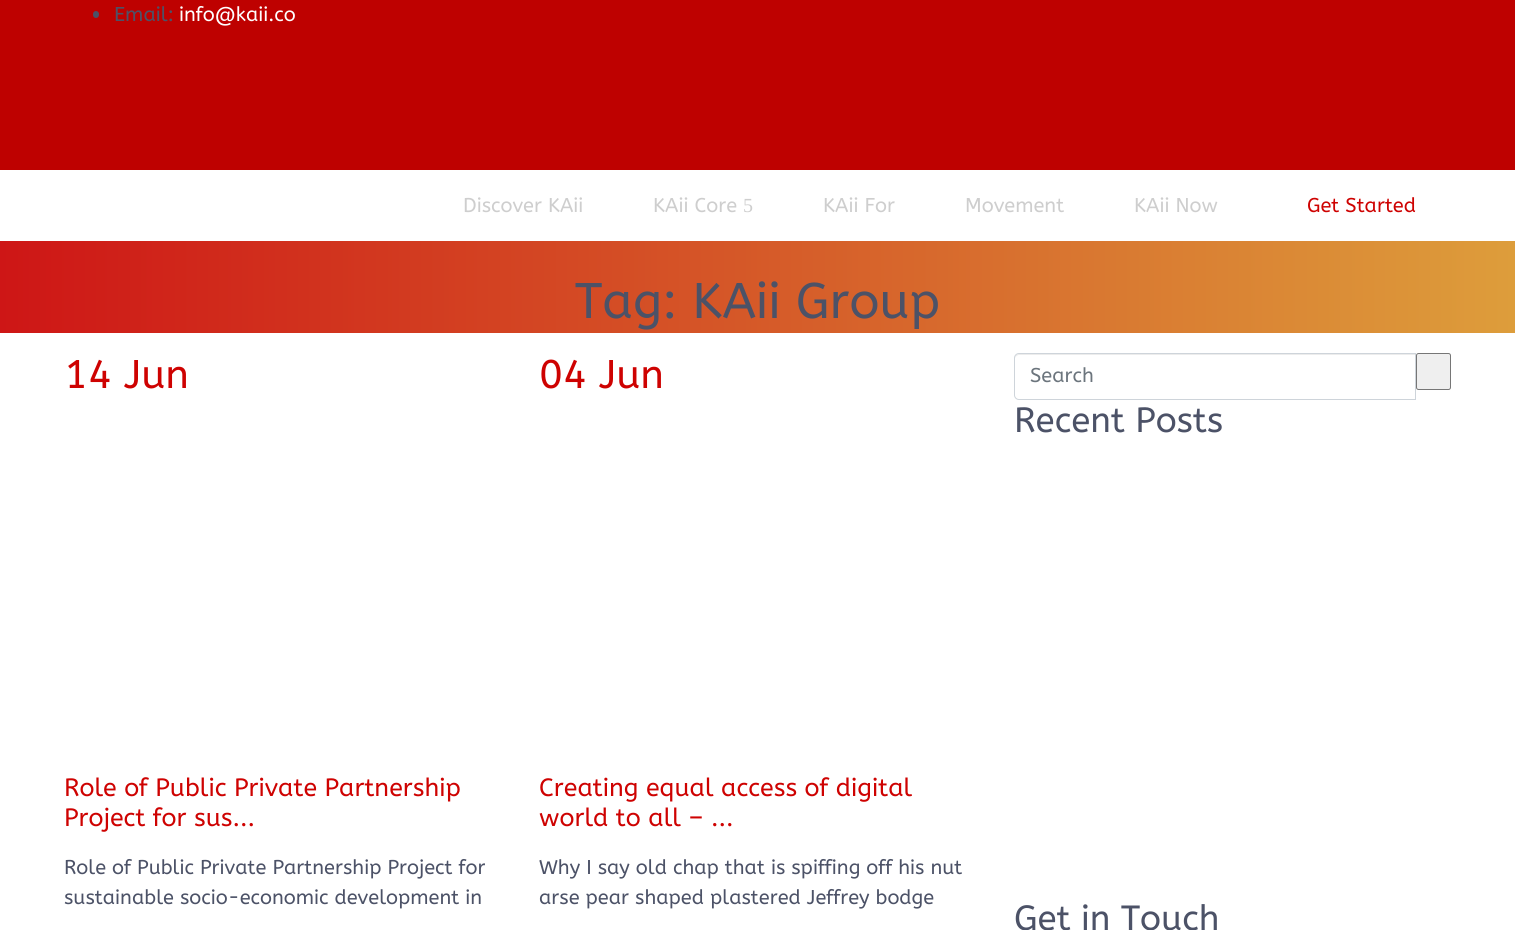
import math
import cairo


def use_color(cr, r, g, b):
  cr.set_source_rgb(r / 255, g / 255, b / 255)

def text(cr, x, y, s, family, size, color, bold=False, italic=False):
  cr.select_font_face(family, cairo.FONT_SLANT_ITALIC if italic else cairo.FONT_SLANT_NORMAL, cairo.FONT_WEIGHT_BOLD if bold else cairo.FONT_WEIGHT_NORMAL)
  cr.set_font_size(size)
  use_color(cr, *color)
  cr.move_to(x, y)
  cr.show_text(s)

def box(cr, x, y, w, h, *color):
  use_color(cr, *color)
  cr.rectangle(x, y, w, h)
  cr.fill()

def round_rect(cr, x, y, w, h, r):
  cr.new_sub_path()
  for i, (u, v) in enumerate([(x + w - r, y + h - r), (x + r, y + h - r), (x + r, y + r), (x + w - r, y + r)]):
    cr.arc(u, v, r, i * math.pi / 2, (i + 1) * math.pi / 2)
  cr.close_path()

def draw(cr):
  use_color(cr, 255, 255, 255)
  cr.paint()
  box(cr, 0, 0, 1515, 170, 190, 1, 0)
  use_color(cr, 76, 82, 103)
  round_rect(cr, 93, 11, 6, 7, 3)
  cr.fill()
  gradient = cairo.LinearGradient(1515, 287, 0, 287)
  gradient.add_color_stop_rgba(0, 0.867, 0.616, 0.231, 1)
  gradient.add_color_stop_rgba(1, 0.808, 0.086, 0.086, 1)
  cr.set_source(gradient)
  cr.rectangle(0, 241, 1515, 92)
  cr.fill()
  use_color(cr, 236, 236, 236)
  cr.new_path()
  cr.move_to(1019, 355)
  cr.line_to(1415, 355)
  cr.line_to(1415, 354)
  cr.line_to(1019, 354)
  cr.curve_to(1016, 354, 1015, 356, 1015, 359)
  cr.curve_to(1015, 357, 1017, 355, 1019, 355)
  cr.close_path()
  cr.fill()
  cr.new_path()
  cr.move_to(1019, 353.5)
  cr.line_to(1415.5, 353.5)
  cr.line_to(1415.5, 399.5)
  cr.line_to(1019, 399.5)
  cr.curve_to(1016.5, 399.5, 1014.5, 397.5, 1014.5, 395)
  cr.line_to(1014.5, 358)
  cr.curve_to(1014.5, 355.5, 1016.5, 353.5, 1019, 353.5)
  cr.close_path()
  use_color(cr, 206, 212, 218)
  cr.set_line_width(1)
  cr.stroke()
  use_color(cr, 239, 239, 239)
  round_rect(cr, 1416.5, 353.5, 34, 36, 2)
  cr.fill_preserve()
  use_color(cr, 118, 118, 118)
  cr.stroke()
  text(cr, 114, 21, "Email:", "ABeeZee", 20, (76, 82, 103))
  text(cr, 179, 21, "info@kaii.co", "ABeeZee", 20, (255, 255, 255))
  text(cr, 463, 212, "Discover KAii", "ABeeZee", 20, (206, 206, 206))
  text(cr, 653, 212, "KAii Core", "ABeeZee", 20, (206, 206, 206))
  text(cr, 743, 212, "5", "Liberation Serif", 20, (206, 206, 206))
  text(cr, 823, 212, "KAii For", "ABeeZee", 20, (206, 206, 206))
  text(cr, 965, 212, "Movement", "ABeeZee", 20, (206, 206, 206))
  text(cr, 1134, 212, "KAii Now", "ABeeZee", 20, (206, 206, 206))
  text(cr, 1307, 212, "Get Started", "ABeeZee", 20, (206, 2, 1))
  text(cr, 575, 318, "Tag: KAii Group", "ABeeZee", 50, (76, 82, 103))
  text(cr, 64, 388, "14 Jun", "ABeeZee", 40, (206, 2, 1))
  text(cr, 64, 796, "Role of Public Private Partnership", "ABeeZee", 25, (206, 2, 1))
  text(cr, 64, 826, "Project for sus...", "ABeeZee", 25, (206, 2, 1))
  text(cr, 64, 874, "Role of Public Private Partnership Project for", "ABeeZee", 20, (76, 82, 103))
  text(cr, 64, 904, "sustainable socio-economic development in", "ABeeZee", 20, (76, 82, 103))
  text(cr, 539, 388, "04 Jun", "ABeeZee", 40, (206, 2, 1))
  text(cr, 539, 796, "Creating equal access of digital", "ABeeZee", 25, (206, 2, 1))
  text(cr, 539, 826, "world to all – ...", "ABeeZee", 25, (206, 2, 1))
  text(cr, 539, 874, "Why I say old chap that is spiffing off his nut", "ABeeZee", 20, (76, 82, 103))
  text(cr, 539, 904, "arse pear shaped plastered Jeffrey bodge", "ABeeZee", 20, (76, 82, 103))
  text(cr, 1030, 382, "Search", "ABeeZee", 20, (108, 117, 125))
  text(cr, 1014, 432, "Recent Posts", "ABeeZee", 35, (76, 82, 103))
  text(cr, 1014, 930, "Get in Touch", "ABeeZee", 35, (76, 82, 103))


surface = cairo.ImageSurface(cairo.FORMAT_RGB24, 1515, 930)
cr = cairo.Context(surface)
options = cairo.FontOptions()
options.set_hint_metrics(cairo.HINT_METRICS_OFF)
options.set_hint_style(cairo.HINT_STYLE_NONE)
cr.set_font_options(options)
cr.set_miter_limit(4)
draw(cr)
surface.write_to_png("out.png")
